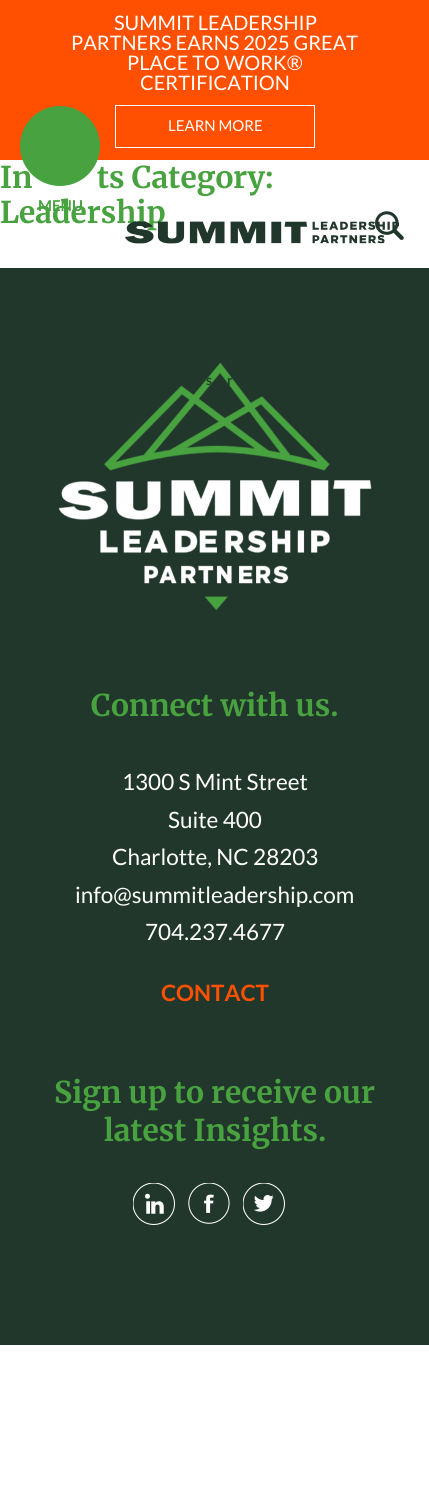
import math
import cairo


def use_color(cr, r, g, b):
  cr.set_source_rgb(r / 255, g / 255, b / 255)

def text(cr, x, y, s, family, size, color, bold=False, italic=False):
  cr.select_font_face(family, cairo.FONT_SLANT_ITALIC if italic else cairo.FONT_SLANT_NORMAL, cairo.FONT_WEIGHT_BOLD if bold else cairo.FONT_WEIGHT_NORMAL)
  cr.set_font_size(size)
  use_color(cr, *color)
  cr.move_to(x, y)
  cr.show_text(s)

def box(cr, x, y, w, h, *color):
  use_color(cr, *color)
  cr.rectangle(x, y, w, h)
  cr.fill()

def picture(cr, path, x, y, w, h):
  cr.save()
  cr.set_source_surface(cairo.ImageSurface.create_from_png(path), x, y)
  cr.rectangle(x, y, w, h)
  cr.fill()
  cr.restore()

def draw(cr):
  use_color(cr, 255, 255, 255)
  cr.paint()
  box(cr, 0, 0, 429, 160, 254, 80, 0)
  cr.rectangle(115.5, 105.5, 199, 42)
  use_color(cr, 255, 255, 255)
  cr.set_line_width(1)
  cr.stroke()
  picture(cr, "img_01.png", 375, 211, 29, 29)
  box(cr, 0, 268, 429, 1077, 34, 55, 43)
  picture(cr, "img_03.png", 58, 362, 314, 249)
  picture(cr, "img_04.png", 133, 1183, 42, 42)
  picture(cr, "img_05.png", 188, 1183, 42, 41)
  picture(cr, "img_06.png", 243, 1183, 42, 42)
  use_color(cr, 71, 162, 63)
  cr.arc(60, 146, 40, 0, 2 * math.pi)
  cr.fill()
  text(cr, 114, 30, "SUMMIT LEADERSHIP", "Lato", 20, (255, 255, 255))
  text(cr, 71, 50, "PARTNERS EARNS 2025 GREAT", "Lato", 20, (255, 255, 255))
  text(cr, 127, 70, "PLACE TO WORK®", "Lato", 20, (255, 255, 255))
  text(cr, 140, 90, "CERTIFICATION", "Lato", 20, (255, 255, 255))
  text(cr, 168, 131, "LEARN MORE", "Lato", 15, (255, 255, 255))
  text(cr, 0, 188, "In", "Merriweather", 30, (71, 162, 63), bold=True)
  text(cr, 97, 188, "ts Category:", "Merriweather", 30, (71, 162, 63), bold=True)
  text(cr, 0, 223, "Leadership", "Merriweather", 30, (71, 162, 63), bold=True)
  picture(cr, "img_02.png", 125, 221, 275, 23)
  text(cr, 91, 716, "Connect with us.", "Merriweather", 30, (71, 162, 63), bold=True)
  text(cr, 122, 790, "1300 S Mint Street", "Lato", 22.5, (255, 255, 255))
  text(cr, 168, 828, "Suite 400", "Lato", 22.5, (255, 255, 255))
  text(cr, 112, 865, "Charlotte, NC 28203", "Lato", 22.5, (255, 255, 255))
  text(cr, 75, 903, "info@summitleadership.com", "Lato", 22.5, (255, 255, 255))
  text(cr, 145, 940, "704.237.4677", "Lato", 22.5, (255, 255, 255))
  text(cr, 161, 1001, "CONTACT", "Lato", 22.5, (254, 80, 0), bold=True)
  text(cr, 54, 1103, "Sign up to receive our", "Merriweather", 30, (71, 162, 63), bold=True)
  text(cr, 104, 1141, "latest Insights.", "Merriweather", 30, (71, 162, 63), bold=True)
  text(cr, 38, 211, "MENU", "Lato", 15, (71, 162, 63), bold=True)
  text(cr, 206, 385, "s", "Lato", 14, (37, 64, 45), bold=True)
  text(cr, 227, 385, "r", "Lato", 14, (37, 64, 45), bold=True)


surface = cairo.ImageSurface(cairo.FORMAT_RGB24, 429, 1485)
cr = cairo.Context(surface)
options = cairo.FontOptions()
options.set_hint_metrics(cairo.HINT_METRICS_OFF)
options.set_hint_style(cairo.HINT_STYLE_NONE)
cr.set_font_options(options)
cr.set_miter_limit(4)
draw(cr)
surface.write_to_png("out.png")
